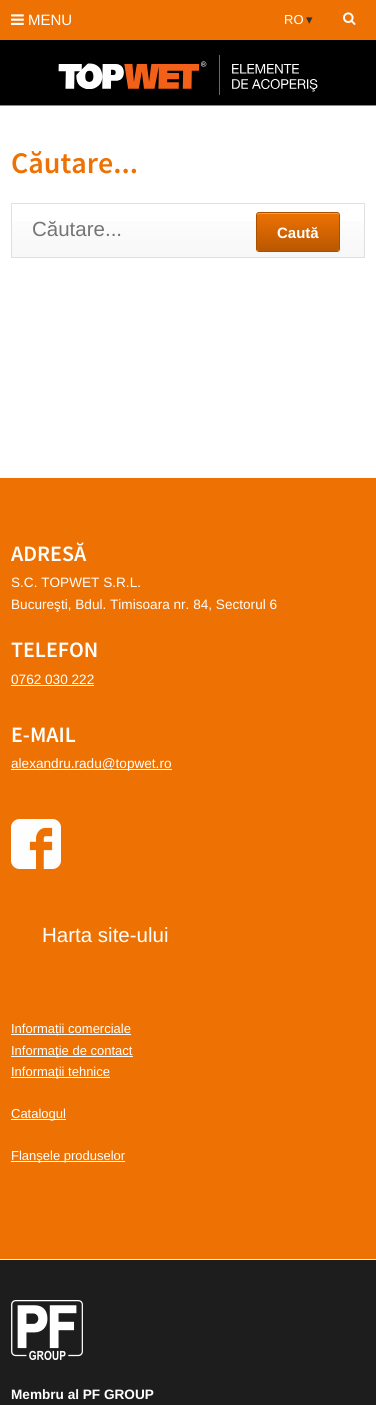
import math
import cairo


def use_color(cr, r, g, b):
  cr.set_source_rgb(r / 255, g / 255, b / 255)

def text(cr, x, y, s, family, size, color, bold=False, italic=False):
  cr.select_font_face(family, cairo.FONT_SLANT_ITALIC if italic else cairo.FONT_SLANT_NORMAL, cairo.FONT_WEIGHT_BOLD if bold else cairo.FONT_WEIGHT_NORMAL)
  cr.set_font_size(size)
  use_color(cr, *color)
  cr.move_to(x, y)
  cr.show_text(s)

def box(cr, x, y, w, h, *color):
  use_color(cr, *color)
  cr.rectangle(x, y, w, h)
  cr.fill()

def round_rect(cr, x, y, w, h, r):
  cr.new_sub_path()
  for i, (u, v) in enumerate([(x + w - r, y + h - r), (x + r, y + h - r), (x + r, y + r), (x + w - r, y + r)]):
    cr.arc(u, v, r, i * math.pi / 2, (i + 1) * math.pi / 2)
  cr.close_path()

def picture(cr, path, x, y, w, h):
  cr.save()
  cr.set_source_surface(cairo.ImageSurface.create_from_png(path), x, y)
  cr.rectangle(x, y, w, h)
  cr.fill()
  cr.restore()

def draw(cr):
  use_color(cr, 255, 255, 255)
  cr.paint()
  box(cr, 0, 40, 376, 65, 0, 0, 0)
  box(cr, 0, 105, 376, 1, 238, 114, 3)
  box(cr, 0, 0, 376, 40, 238, 114, 3)
  picture(cr, "img_01.png", 11, 14, 13, 11)
  picture(cr, "img_02.png", 343, 12, 13, 13)
  picture(cr, "img_03.png", 58, 55, 260, 40)
  gradient = cairo.LinearGradient(188, 204, 188, 257)
  gradient.add_color_stop_rgba(0, 1, 1, 1, 1)
  gradient.add_color_stop_rgba(1, 0.969, 0.969, 0.969, 1)
  cr.set_source(gradient)
  cr.rectangle(12, 221, 352, 36)
  cr.fill()
  cr.rectangle(11.5, 203.5, 353, 54)
  use_color(cr, 224, 224, 224)
  cr.set_line_width(1)
  cr.stroke()
  gradient = cairo.LinearGradient(298, 213, 298, 251)
  gradient.add_color_stop_rgba(0, 0.933, 0.447, 0.012, 1)
  gradient.add_color_stop_rgba(1, 0.725, 0.341, 0, 1)
  cr.set_source(gradient)
  round_rect(cr, 257, 213, 82, 38, 2)
  cr.fill()
  use_color(cr, 245, 154, 73)
  cr.new_path()
  cr.move_to(259, 214)
  cr.line_to(337, 214)
  cr.curve_to(338, 214, 339, 215, 339, 216)
  cr.curve_to(339, 209, 327, 213, 324, 213)
  cr.line_to(272, 213)
  cr.curve_to(269, 213, 257, 209, 257, 216)
  cr.curve_to(257, 215, 258, 214, 259, 214)
  cr.close_path()
  cr.fill()
  round_rect(cr, 256.5, 212.5, 83, 39, 2.5)
  use_color(cr, 170, 80, 0)
  cr.stroke()
  box(cr, 0, 478, 376, 781, 238, 114, 3)
  box(cr, 11, 685, 83, 1, 255, 255, 255)
  box(cr, 11, 769, 161, 1, 255, 255, 255)
  picture(cr, "img_04.png", 11, 819, 50, 50)
  box(cr, 11, 1034, 120, 1, 255, 255, 255)
  box(cr, 11, 1056, 122, 1, 255, 255, 255)
  box(cr, 11, 1077, 99, 1, 255, 255, 255)
  box(cr, 11, 1119, 55, 1, 255, 255, 255)
  box(cr, 11, 1161, 114, 1, 255, 255, 255)
  box(cr, 0, 1260, 376, 145, 29, 29, 30)
  box(cr, 0, 1259, 376, 1, 240, 240, 240)
  picture(cr, "img_05.png", 11, 1300, 72, 60)
  text(cr, 28, 25, "MENU", "Liberation Sans", 15, (255, 255, 255))
  text(cr, 284, 24, "RO", "Liberation Sans", 13, (255, 255, 255))
  text(cr, 306, 24, "▾", "DejaVu Sans", 13, (51, 51, 51))
  text(cr, 11, 173, "Căutare...", "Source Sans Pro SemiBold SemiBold", 30, (238, 114, 3))
  text(cr, 32, 236, "Căutare...", "Liberation Sans", 20.5, (117, 117, 117))
  text(cr, 277, 238, "Caută", "Liberation Sans", 15, (255, 255, 255), bold=True)
  text(cr, 11, 561, "ADRESĂ", "Source Sans Pro SemiBold SemiBold", 22, (255, 255, 255))
  text(cr, 11, 587, "S.C. TOPWET S.R.L.", "Liberation Sans", 13.6, (255, 255, 255))
  text(cr, 11, 609, "Bucureşti, Bdul. Timisoara nr. 84, Sectorul 6", "Liberation Sans", 13.6, (255, 255, 255))
  text(cr, 11, 657, "TELEFON", "Source Sans Pro SemiBold SemiBold", 22, (255, 255, 255))
  text(cr, 11, 684, "0762 030 222", "Liberation Sans", 13.6, (255, 255, 255))
  text(cr, 11, 742, "E-MAIL", "Source Sans Pro SemiBold SemiBold", 22, (255, 255, 255))
  text(cr, 11, 768, "alexandru.radu@topwet.ro", "Liberation Sans", 13.6, (255, 255, 255))
  text(cr, 42, 942, "Harta site-ului", "Liberation Sans", 20.5, (255, 255, 255))
  text(cr, 11, 1033, "Informații comerciale", "Liberation Sans", 13, (255, 255, 255))
  text(cr, 11, 1055, "Informaţie de contact", "Liberation Sans", 13, (255, 255, 255))
  text(cr, 11, 1076, "Informaţii tehnice", "Liberation Sans", 13, (255, 255, 255))
  text(cr, 11, 1118, "Catalogul", "Liberation Sans", 13, (255, 255, 255))
  text(cr, 11, 1160, "Flanşele produselor", "Liberation Sans", 13, (255, 255, 255))
  text(cr, 11, 1399, "Membru al PF GROUP", "Liberation Sans", 13.6, (255, 255, 255), bold=True)


surface = cairo.ImageSurface(cairo.FORMAT_RGB24, 376, 1405)
cr = cairo.Context(surface)
options = cairo.FontOptions()
options.set_hint_metrics(cairo.HINT_METRICS_OFF)
options.set_hint_style(cairo.HINT_STYLE_NONE)
cr.set_font_options(options)
cr.set_miter_limit(4)
draw(cr)
surface.write_to_png("out.png")
